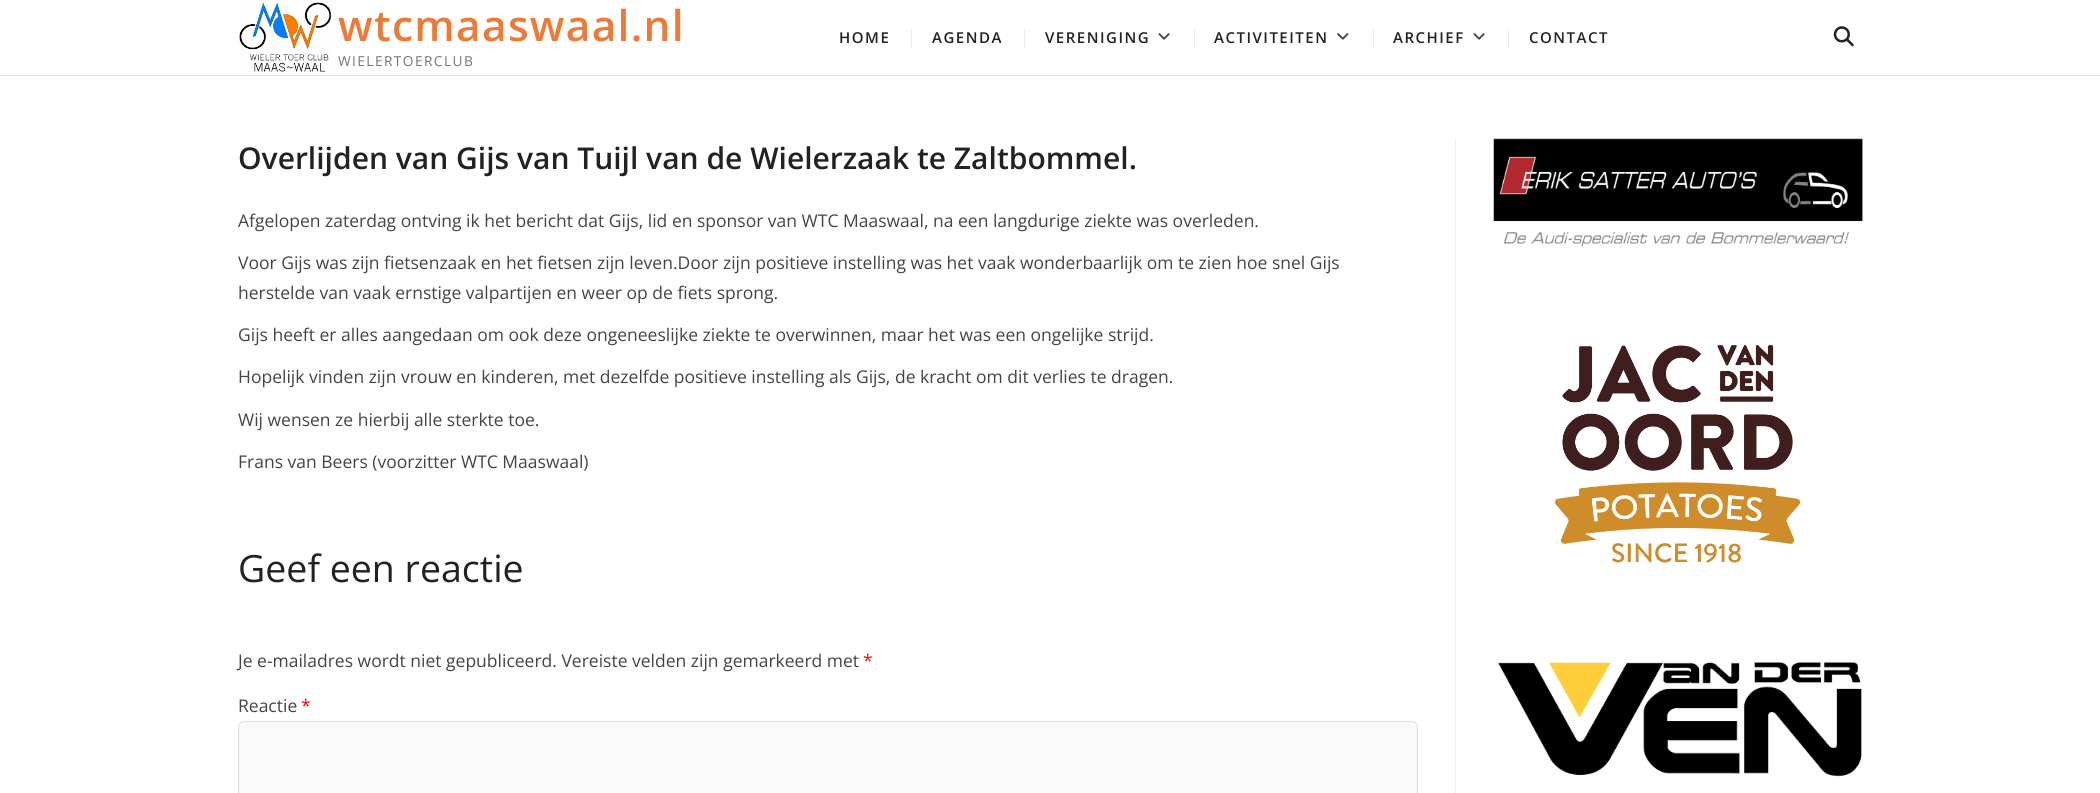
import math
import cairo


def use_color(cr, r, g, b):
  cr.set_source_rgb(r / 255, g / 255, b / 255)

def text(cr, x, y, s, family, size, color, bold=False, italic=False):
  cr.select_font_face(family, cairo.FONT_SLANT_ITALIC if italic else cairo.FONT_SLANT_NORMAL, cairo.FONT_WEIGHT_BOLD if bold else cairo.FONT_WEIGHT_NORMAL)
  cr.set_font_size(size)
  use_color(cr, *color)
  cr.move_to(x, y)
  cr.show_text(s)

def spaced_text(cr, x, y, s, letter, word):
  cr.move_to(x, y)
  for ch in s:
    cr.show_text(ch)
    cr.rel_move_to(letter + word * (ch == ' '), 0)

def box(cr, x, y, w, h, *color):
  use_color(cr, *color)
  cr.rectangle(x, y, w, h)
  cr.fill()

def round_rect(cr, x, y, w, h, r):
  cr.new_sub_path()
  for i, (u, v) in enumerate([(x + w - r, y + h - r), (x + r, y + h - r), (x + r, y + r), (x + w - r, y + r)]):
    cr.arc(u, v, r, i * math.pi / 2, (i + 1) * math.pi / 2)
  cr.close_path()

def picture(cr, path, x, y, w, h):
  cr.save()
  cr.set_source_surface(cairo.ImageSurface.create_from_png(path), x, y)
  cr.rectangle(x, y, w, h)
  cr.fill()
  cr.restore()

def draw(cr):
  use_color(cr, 255, 255, 255)
  cr.paint()
  box(cr, 0, 75, 2100, 1, 230, 230, 230)
  picture(cr, "img_01.png", 239, 2, 92, 70)
  box(cr, 911, 29, 1, 19, 234, 234, 235)
  box(cr, 1024, 29, 1, 19, 234, 234, 235)
  picture(cr, "img_02.png", 1158, 33, 12, 7)
  box(cr, 1194, 29, 1, 19, 234, 234, 235)
  picture(cr, "img_03.png", 1337, 33, 12, 7)
  box(cr, 1373, 29, 1, 19, 234, 234, 235)
  picture(cr, "img_02.png", 1473, 33, 12, 7)
  box(cr, 1508, 29, 1, 19, 234, 234, 235)
  picture(cr, "img_04.png", 1833, 26, 21, 21)
  box(cr, 1455, 139, 1, 654, 238, 238, 238)
  use_color(cr, 250, 250, 250)
  round_rect(cr, 238.5, 721.5, 1179, 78, 5.5)
  cr.fill_preserve()
  use_color(cr, 225, 225, 225)
  cr.set_line_width(1)
  cr.stroke()
  picture(cr, "img_05.png", 1493, 138, 370, 109)
  picture(cr, "img_06.png", 1555, 345, 246, 218)
  picture(cr, "img_07.png", 1498, 662, 364, 115)
  cr.select_font_face("Open Sans SemiBold")
  cr.set_font_size(42.5)
  use_color(cr, 239, 122, 55)
  spaced_text(cr, 338, 41, "wtcmaaswaal.nl", 1.25, 0)
  cr.select_font_face("Open Sans")
  cr.set_font_size(13.75)
  use_color(cr, 116, 116, 116)
  spaced_text(cr, 338, 66, "WIELERTOERCLUB", 1.4, 0)
  cr.select_font_face("Open Sans SemiBold")
  cr.set_font_size(15)
  use_color(cr, 34, 34, 34)
  spaced_text(cr, 839, 43, "HOME", 1.5, 0)
  spaced_text(cr, 932, 43, "AGENDA", 1.5, 0)
  spaced_text(cr, 1045, 43, "VERENIGING", 1.5, 0)
  spaced_text(cr, 1214, 43, "ACTIVITEITEN", 1.5, 0)
  spaced_text(cr, 1393, 43, "ARCHIEF", 1.5, 0)
  spaced_text(cr, 1529, 43, "CONTACT", 1.5, 0)
  text(cr, 238, 169, "Overlijden van Gijs van Tuijl van de Wielerzaak te Zaltbommel.", "Open Sans SemiBold", 30, (34, 34, 34))
  text(cr, 238, 227, "Afgelopen zaterdag ontving ik het bericht dat Gijs, lid en sponsor van WTC Maaswaal, na een langdurige ziekte was overleden.", "Open Sans", 17.5, (68, 68, 68))
  text(cr, 238, 269, "Voor Gijs was zijn fietsenzaak en het fietsen zijn leven.Door zijn positieve instelling was het vaak wonderbaarlijk om te zien hoe snel Gijs", "Open Sans", 17.5, (68, 68, 68))
  text(cr, 238, 299, "herstelde van vaak ernstige valpartijen en weer op de fiets sprong.", "Open Sans", 17.5, (68, 68, 68))
  text(cr, 238, 341, "Gijs heeft er alles aangedaan om ook deze ongeneeslijke ziekte te overwinnen, maar het was een ongelijke strijd.", "Open Sans", 17.5, (68, 68, 68))
  text(cr, 238, 383, "Hopelijk vinden zijn vrouw en kinderen, met dezelfde positieve instelling als Gijs, de kracht om dit verlies te dragen.", "Open Sans", 17.5, (68, 68, 68))
  text(cr, 238, 426, "Wij wensen ze hierbij alle sterkte toe.", "Open Sans", 17.5, (68, 68, 68))
  text(cr, 238, 468, "Frans van Beers (voorzitter WTC Maaswaal)", "Open Sans", 17.5, (68, 68, 68))
  text(cr, 238, 582, "Geef een reactie", "Open Sans", 37.5, (34, 34, 34))
  text(cr, 238, 667, "Je e-mailadres wordt niet gepubliceerd. Vereiste velden zijn gemarkeerd met", "Open Sans", 17.5, (68, 68, 68))
  text(cr, 863, 667, "*", "Open Sans", 17.5, (255, 0, 0))
  text(cr, 238, 712, "Reactie", "Open Sans", 17.5, (68, 68, 68))
  text(cr, 301, 712, "*", "Open Sans", 17.5, (255, 0, 0))


surface = cairo.ImageSurface(cairo.FORMAT_RGB24, 2100, 793)
cr = cairo.Context(surface)
options = cairo.FontOptions()
options.set_hint_metrics(cairo.HINT_METRICS_OFF)
options.set_hint_style(cairo.HINT_STYLE_NONE)
cr.set_font_options(options)
cr.set_miter_limit(4)
draw(cr)
surface.write_to_png("out.png")
